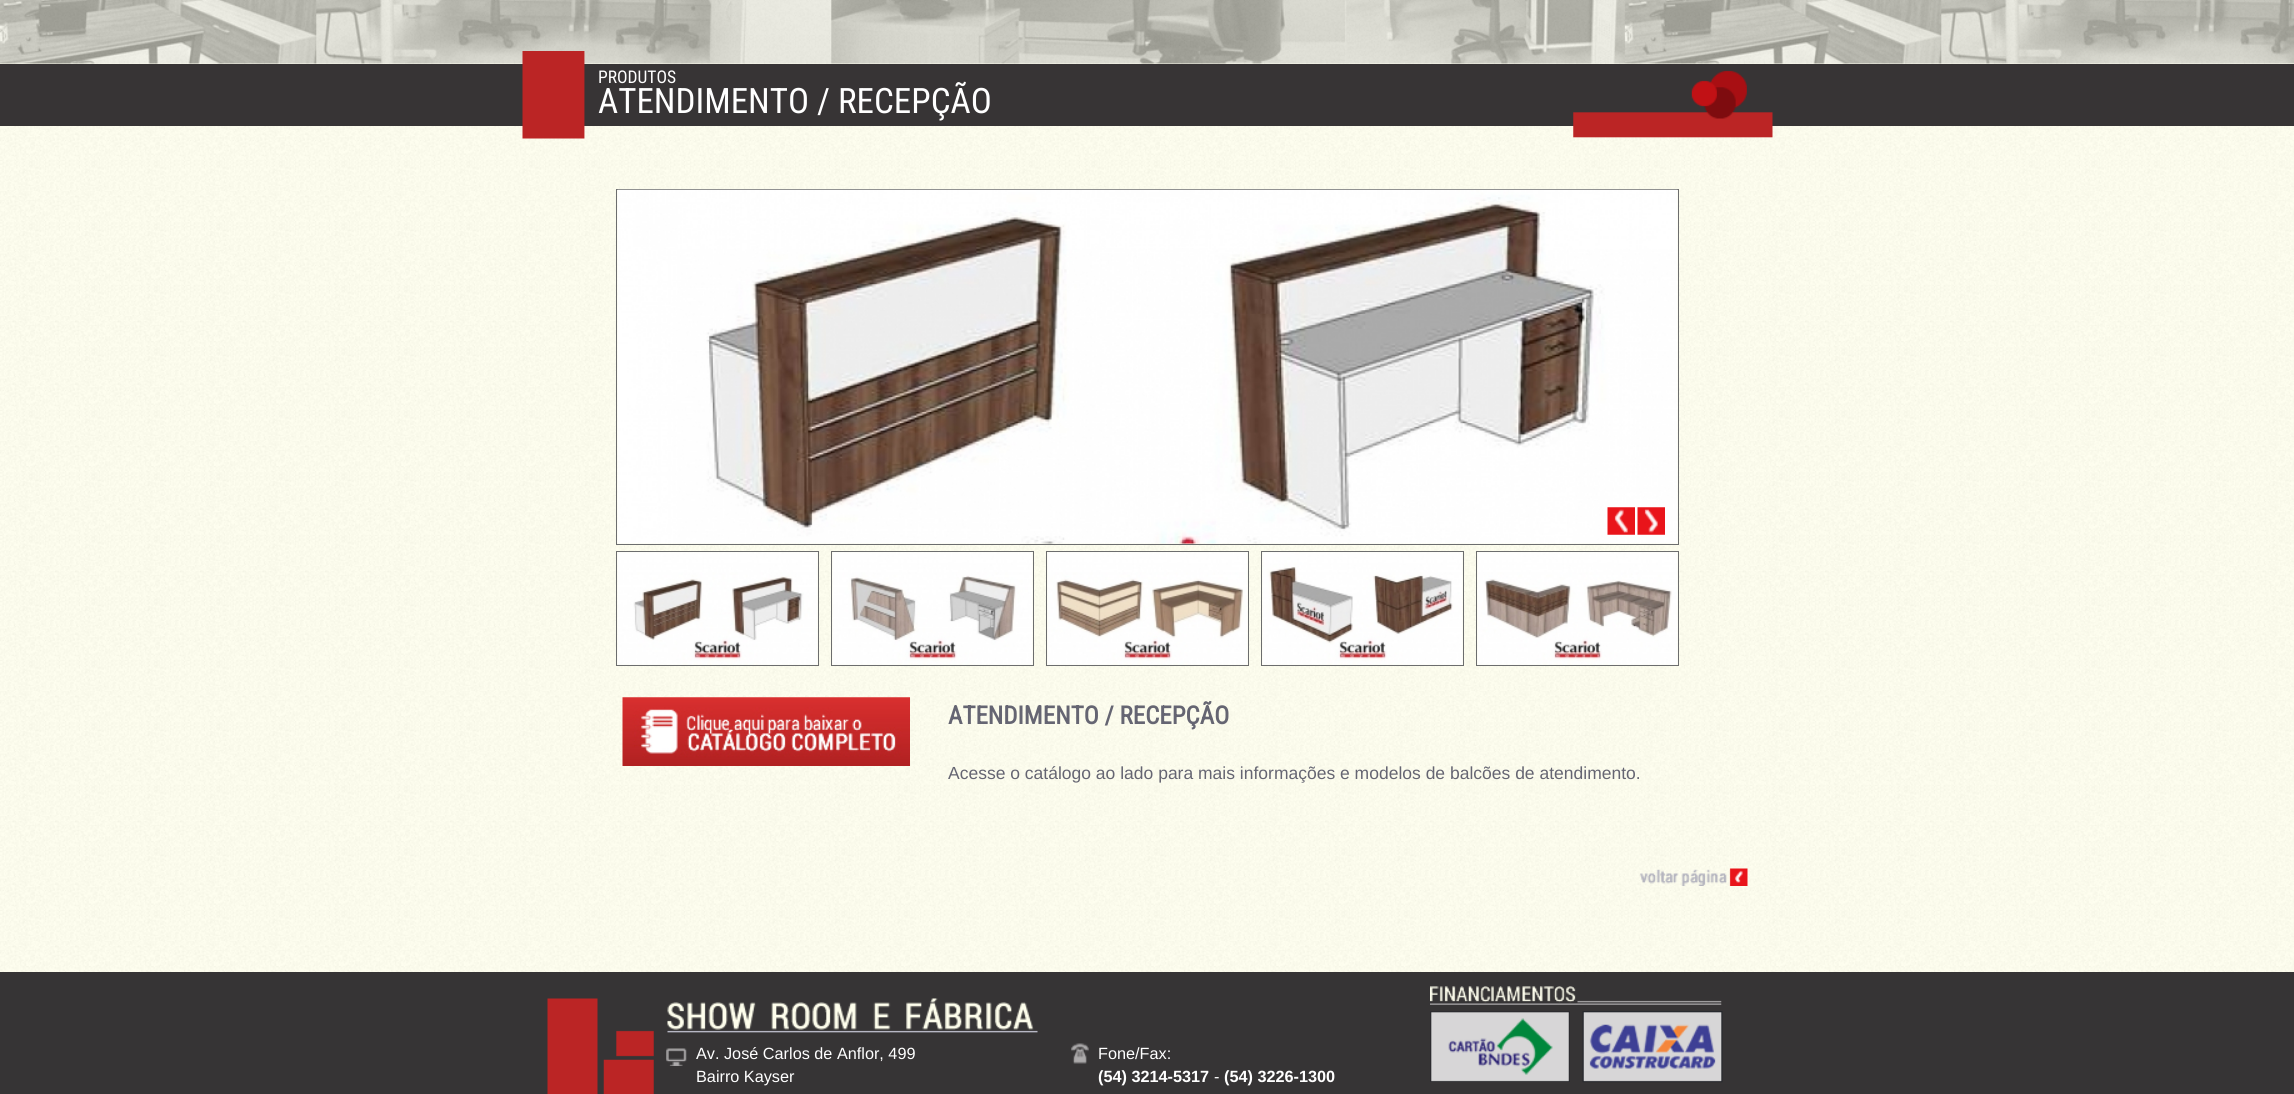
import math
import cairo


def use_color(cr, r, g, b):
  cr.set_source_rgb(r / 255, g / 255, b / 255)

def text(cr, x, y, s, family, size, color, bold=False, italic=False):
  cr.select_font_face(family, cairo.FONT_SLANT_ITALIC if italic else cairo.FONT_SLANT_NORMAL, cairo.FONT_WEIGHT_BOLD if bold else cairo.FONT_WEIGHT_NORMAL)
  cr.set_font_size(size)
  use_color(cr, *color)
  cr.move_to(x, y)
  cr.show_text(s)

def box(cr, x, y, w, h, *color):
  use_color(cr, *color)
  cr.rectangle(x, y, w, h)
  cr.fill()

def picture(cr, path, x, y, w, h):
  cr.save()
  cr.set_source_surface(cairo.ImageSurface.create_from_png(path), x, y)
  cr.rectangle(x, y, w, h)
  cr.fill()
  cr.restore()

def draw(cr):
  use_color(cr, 255, 255, 225)
  cr.paint()
  picture(cr, "img_01.png", 0, 0, 2294, 972)
  picture(cr, "img_02.png", 0, 0, 2294, 64)
  box(cr, 0, 64, 2294, 62, 55, 52, 53)
  picture(cr, "img_03.png", 522, 51, 1251, 88)
  cr.rectangle(616.5, 189.5, 1062, 355)
  use_color(cr, 108, 109, 110)
  cr.set_line_width(1)
  cr.stroke()
  picture(cr, "img_04.png", 617, 189, 1061, 355)
  picture(cr, "img_05.png", 1607, 507, 28, 28)
  picture(cr, "img_06.png", 1637, 507, 28, 28)
  cr.rectangle(616.5, 551.5, 202, 114)
  cr.stroke()
  picture(cr, "img_07.png", 617, 552, 201, 113)
  cr.rectangle(831.5, 551.5, 202, 114)
  cr.stroke()
  picture(cr, "img_08.png", 832, 552, 201, 113)
  cr.rectangle(1046.5, 551.5, 202, 114)
  cr.stroke()
  picture(cr, "img_09.png", 1047, 552, 201, 113)
  cr.rectangle(1261.5, 551.5, 202, 114)
  cr.stroke()
  picture(cr, "img_10.png", 1262, 552, 201, 113)
  cr.rectangle(1476.5, 551.5, 202, 114)
  cr.stroke()
  picture(cr, "img_11.png", 1477, 552, 201, 113)
  picture(cr, "img_12.png", 622, 697, 288, 69)
  picture(cr, "img_13.png", 1640, 868, 108, 18)
  box(cr, 0, 972, 2294, 122, 54, 52, 53)
  picture(cr, "img_14.png", 547, 998, 107, 96)
  picture(cr, "img_15.png", 667, 998, 371, 35)
  picture(cr, "img_16.png", 666, 1048, 21, 18)
  picture(cr, "img_17.png", 1071, 1043, 18, 21)
  picture(cr, "img_18.png", 1430, 986, 292, 19)
  picture(cr, "img_19.png", 1430, 1011, 140, 71)
  picture(cr, "img_20.png", 1582, 1011, 141, 72)
  text(cr, 598, 83, "PRODUTOS", "Roboto Condensed", 17.5, (255, 255, 255))
  text(cr, 598, 113, "ATENDIMENTO / RECEPÇÃO", "Roboto Condensed", 35, (255, 255, 255))
  text(cr, 948, 724, "ATENDIMENTO / RECEPÇÃO", "Roboto Condensed", 25, (101, 101, 114), bold=True)
  text(cr, 948, 779, "Acesse o catálogo ao lado para mais informações e modelos de balcões de atendimento.", "Liberation Sans", 17.5, (101, 101, 114))
  text(cr, 696, 1059, "Av. José Carlos de Anflor, 499", "Liberation Sans", 16.25, (255, 255, 255))
  text(cr, 696, 1082, "Bairro Kayser", "Liberation Sans", 16.25, (255, 255, 255))
  text(cr, 1098, 1059, "Fone/Fax:", "Liberation Sans", 16.25, (255, 255, 255))
  text(cr, 1098, 1082, "(54) 3214-5317", "Liberation Sans", 16.25, (255, 255, 255), bold=True)
  text(cr, 1214, 1082, "-", "Liberation Sans", 16.25, (255, 255, 255))
  text(cr, 1224, 1082, "(54) 3226-1300", "Liberation Sans", 16.25, (255, 255, 255), bold=True)


surface = cairo.ImageSurface(cairo.FORMAT_RGB24, 2294, 1094)
cr = cairo.Context(surface)
options = cairo.FontOptions()
options.set_hint_metrics(cairo.HINT_METRICS_OFF)
options.set_hint_style(cairo.HINT_STYLE_NONE)
cr.set_font_options(options)
cr.set_miter_limit(4)
draw(cr)
surface.write_to_png("out.png")
